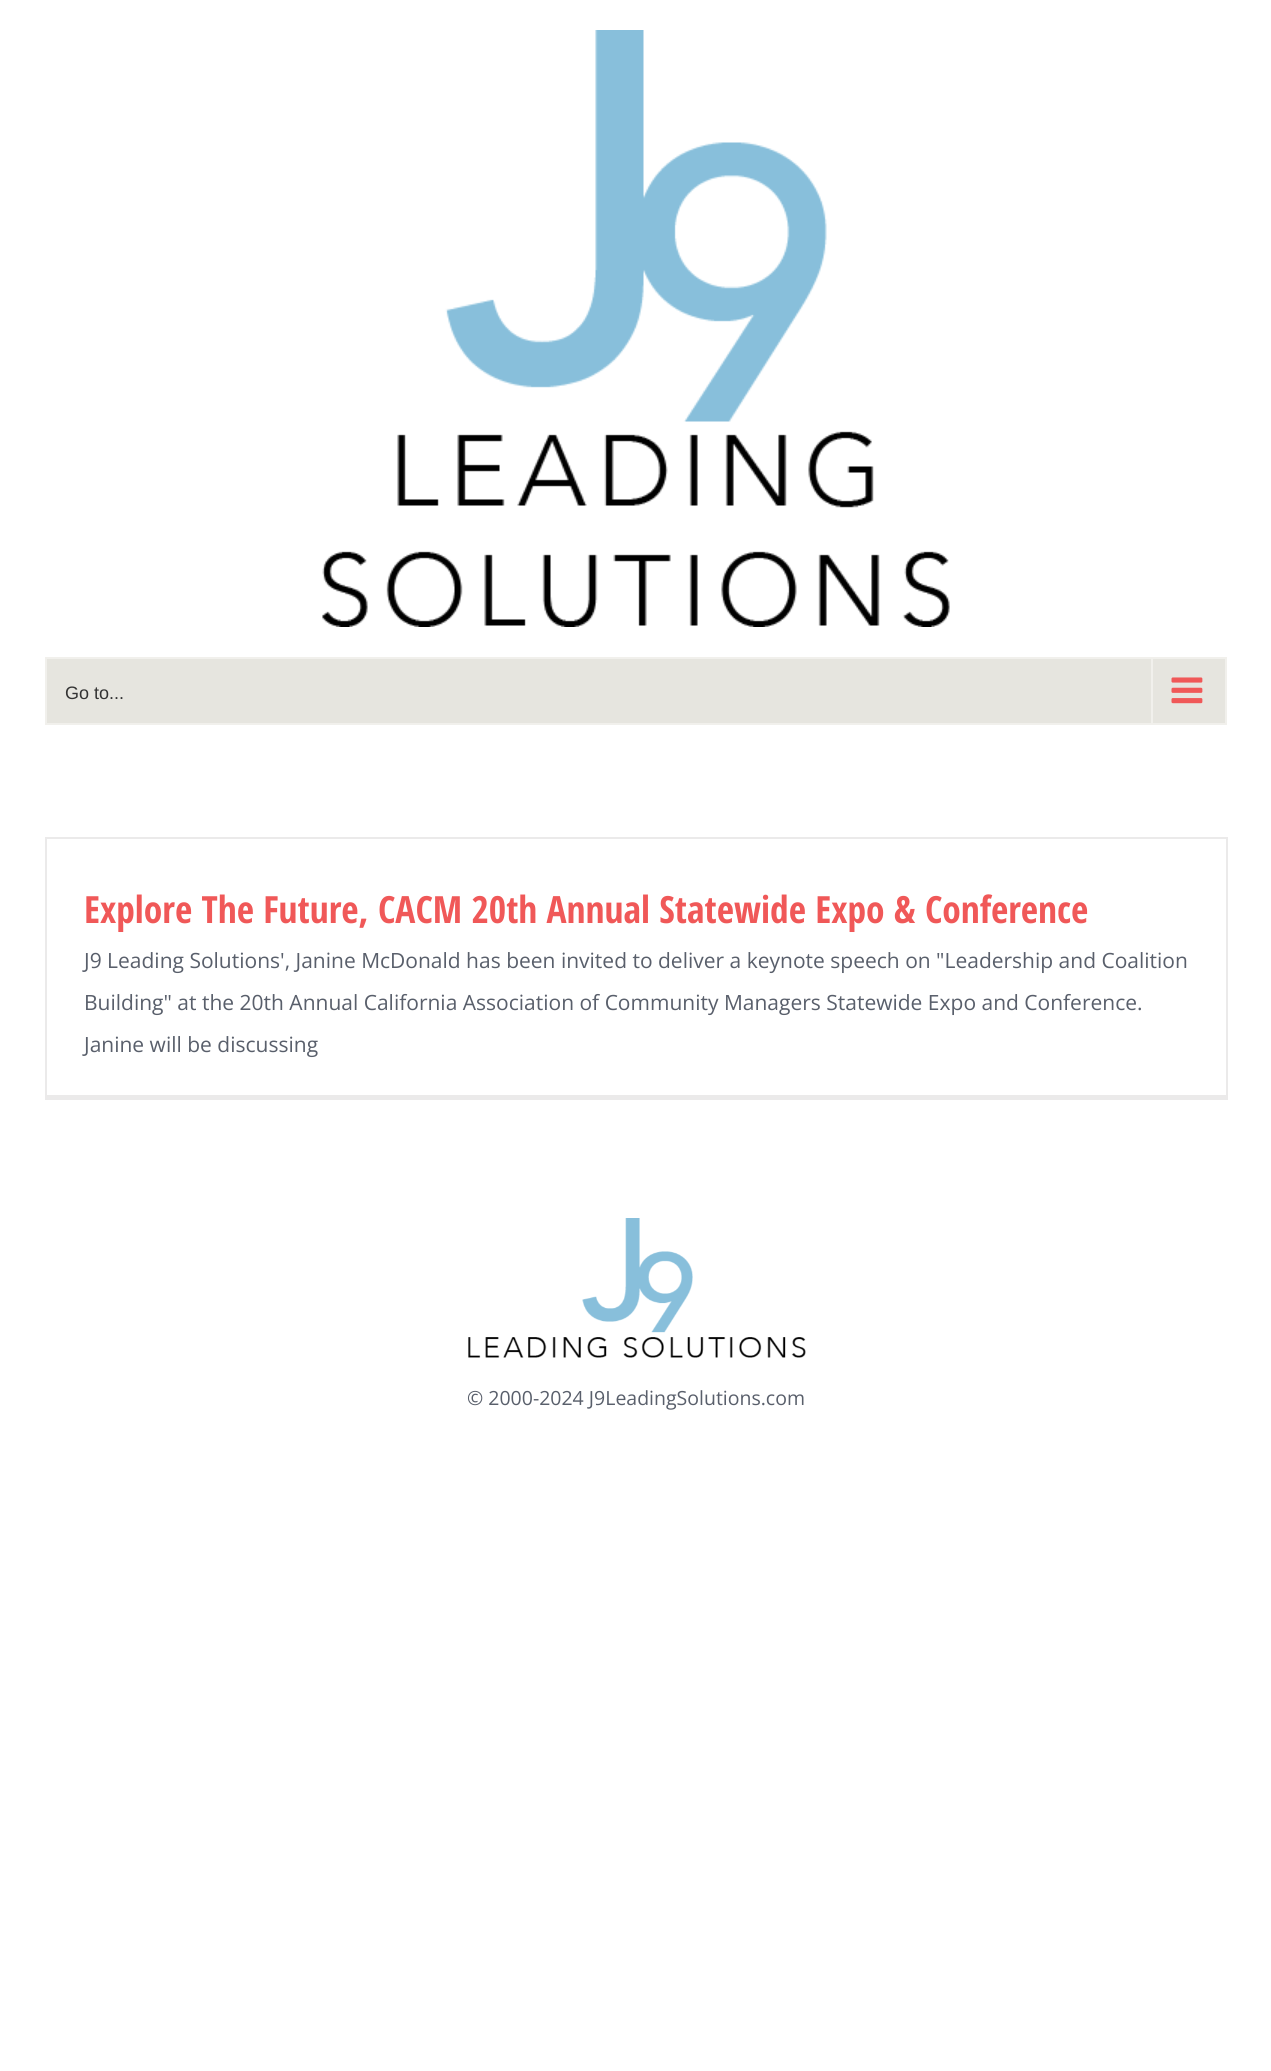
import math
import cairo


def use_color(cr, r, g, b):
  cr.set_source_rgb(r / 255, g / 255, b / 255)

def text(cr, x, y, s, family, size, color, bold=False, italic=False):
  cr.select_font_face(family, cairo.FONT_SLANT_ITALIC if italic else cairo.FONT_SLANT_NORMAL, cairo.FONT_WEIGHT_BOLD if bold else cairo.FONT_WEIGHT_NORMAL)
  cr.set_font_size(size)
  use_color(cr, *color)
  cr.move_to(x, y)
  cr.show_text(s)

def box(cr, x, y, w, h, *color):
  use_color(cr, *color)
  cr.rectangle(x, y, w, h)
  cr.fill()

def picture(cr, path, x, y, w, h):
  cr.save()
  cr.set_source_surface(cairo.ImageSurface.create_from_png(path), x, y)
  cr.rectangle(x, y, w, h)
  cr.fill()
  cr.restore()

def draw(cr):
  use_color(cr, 255, 255, 255)
  cr.paint()
  picture(cr, "img_01.png", 322, 30, 628, 597)
  use_color(cr, 230, 229, 223)
  cr.rectangle(46, 658, 1180, 66)
  cr.fill_preserve()
  use_color(cr, 241, 240, 236)
  cr.stroke()
  box(cr, 1151, 659, 2, 64, 241, 240, 236)
  picture(cr, "img_02.png", 1171, 677, 32, 27)
  box(cr, 45, 837, 1182, 2, 235, 234, 234)
  box(cr, 1226, 837, 2, 263, 235, 234, 234)
  box(cr, 45, 1095, 1182, 5, 235, 234, 234)
  box(cr, 45, 837, 2, 263, 235, 234, 234)
  picture(cr, "img_03.png", 468, 1218, 338, 140)
  text(cr, 65, 699, "Go to...", "Liberation Sans", 18, (51, 51, 51))
  text(cr, 84, 923, "Explore The Future, CACM 20th Annual Statewide Expo & Conference", "Open Sans Condensed", 37.5, (240, 88, 88), bold=True)
  text(cr, 84, 968, "J9 Leading Solutions', Janine McDonald has been invited to deliver a keynote speech on \"Leadership and Coalition", "Open Sans", 21, (89, 95, 107))
  text(cr, 84, 1010, "Building\" at the 20th Annual California Association of Community Managers Statewide Expo and Conference.", "Open Sans", 21, (89, 95, 107))
  text(cr, 84, 1052, "Janine will be discussing", "Open Sans", 21, (89, 95, 107))
  text(cr, 467, 1405, "© 2000-2024 J9LeadingSolutions.com", "Open Sans", 19.5, (89, 95, 107))


surface = cairo.ImageSurface(cairo.FORMAT_RGB24, 1271, 2071)
cr = cairo.Context(surface)
options = cairo.FontOptions()
options.set_hint_metrics(cairo.HINT_METRICS_OFF)
options.set_hint_style(cairo.HINT_STYLE_NONE)
cr.set_font_options(options)
cr.set_miter_limit(4)
draw(cr)
surface.write_to_png("out.png")
